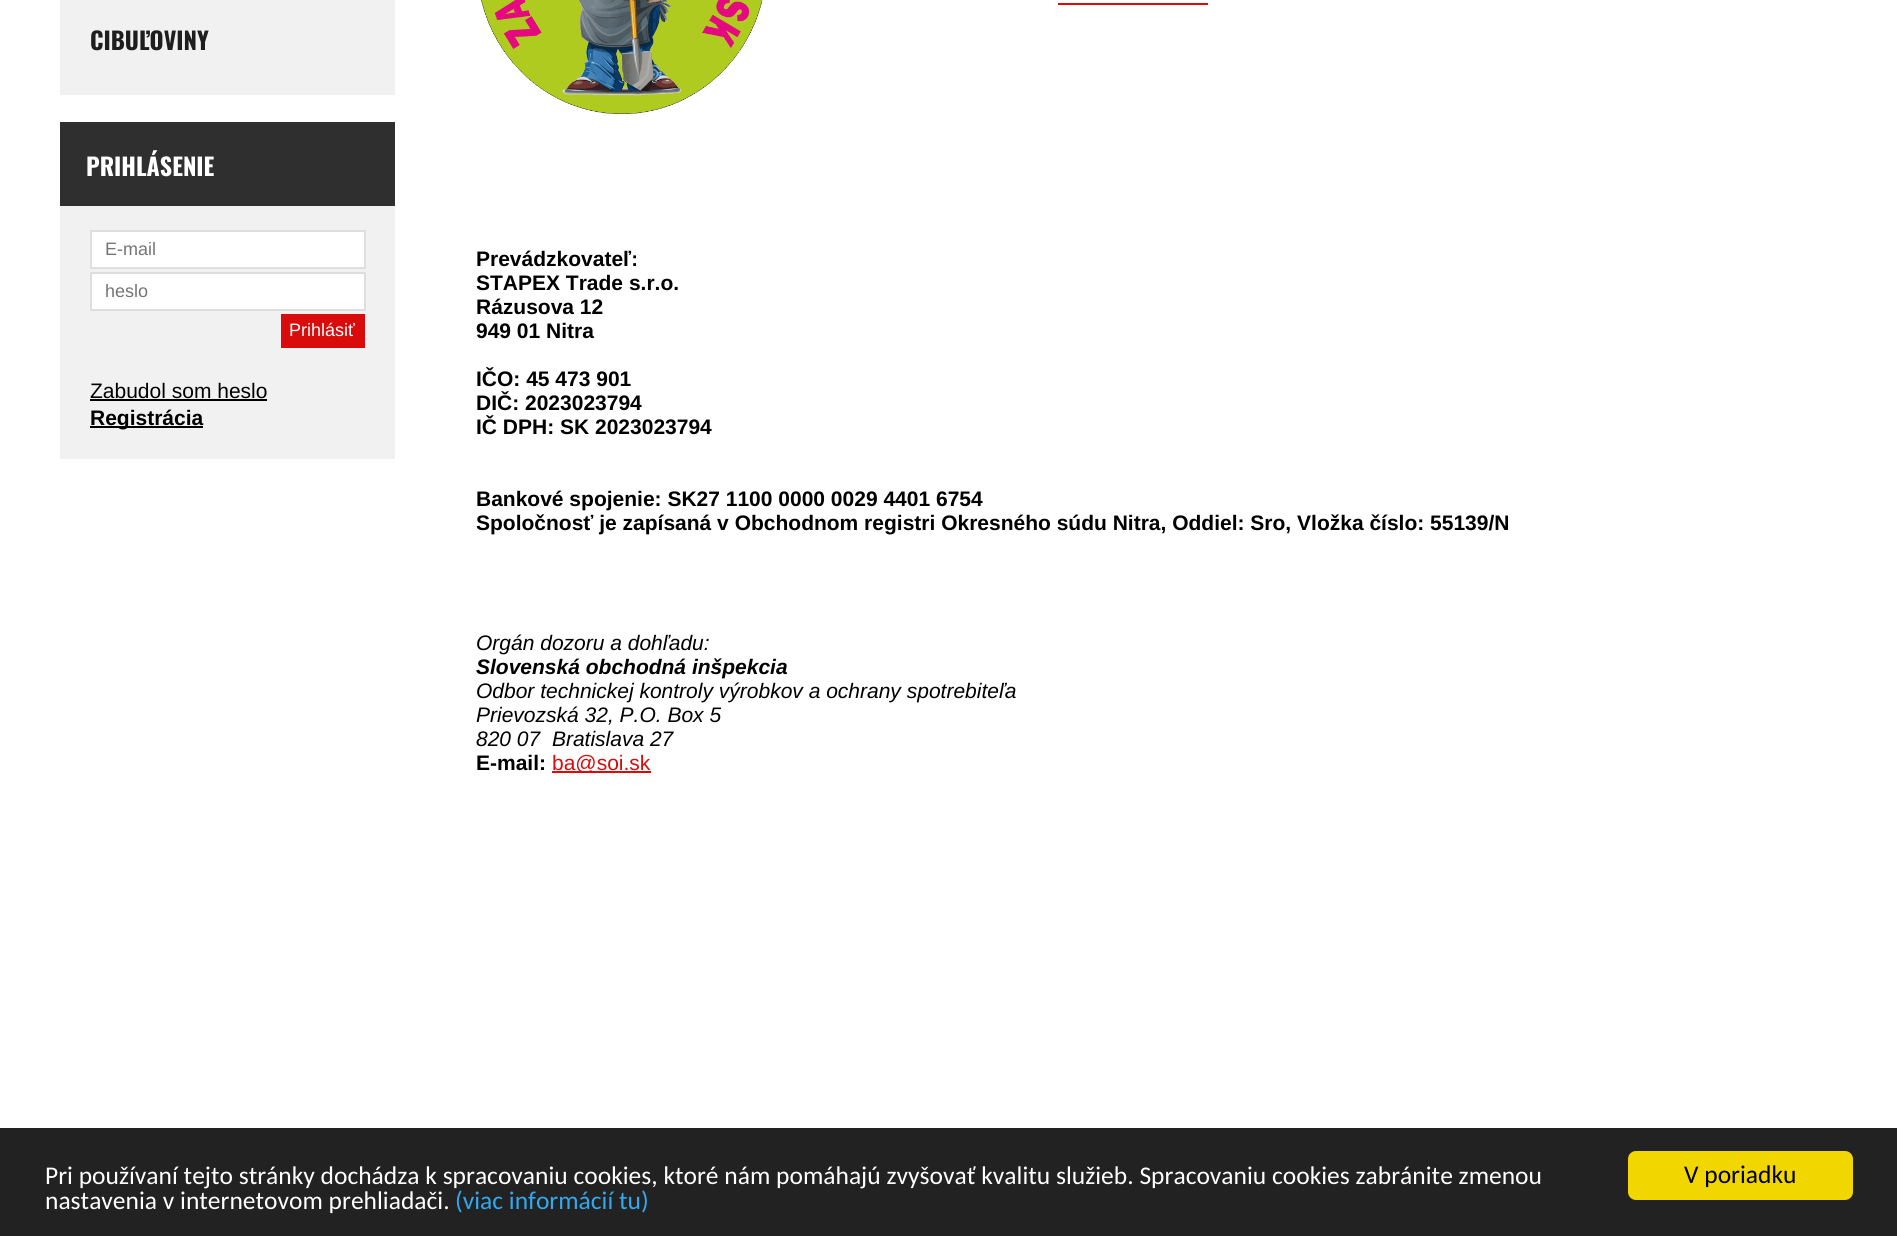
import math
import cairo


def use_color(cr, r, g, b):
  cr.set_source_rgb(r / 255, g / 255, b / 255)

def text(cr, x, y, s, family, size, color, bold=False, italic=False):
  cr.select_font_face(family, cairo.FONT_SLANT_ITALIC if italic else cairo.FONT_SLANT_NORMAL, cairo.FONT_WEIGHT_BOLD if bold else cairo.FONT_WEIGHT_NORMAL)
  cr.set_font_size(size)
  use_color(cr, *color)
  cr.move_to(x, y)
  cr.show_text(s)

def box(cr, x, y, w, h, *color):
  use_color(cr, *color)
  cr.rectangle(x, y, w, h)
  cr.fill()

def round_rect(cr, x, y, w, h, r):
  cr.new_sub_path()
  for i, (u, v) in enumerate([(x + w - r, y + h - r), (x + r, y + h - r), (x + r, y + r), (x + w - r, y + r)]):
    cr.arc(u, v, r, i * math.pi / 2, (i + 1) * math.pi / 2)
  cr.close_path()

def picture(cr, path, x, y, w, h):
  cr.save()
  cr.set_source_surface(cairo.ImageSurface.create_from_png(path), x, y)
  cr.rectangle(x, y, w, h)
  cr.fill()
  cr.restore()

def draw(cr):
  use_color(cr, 255, 255, 255)
  cr.paint()
  box(cr, 60, 0, 335, 95, 241, 241, 241)
  box(cr, 60, 206, 335, 253, 241, 241, 241)
  box(cr, 60, 122, 335, 84, 47, 47, 47)
  use_color(cr, 255, 255, 255)
  cr.rectangle(91, 231, 274, 37)
  cr.fill_preserve()
  use_color(cr, 222, 222, 222)
  cr.stroke()
  use_color(cr, 255, 255, 255)
  cr.rectangle(91, 273, 274, 37)
  cr.fill_preserve()
  use_color(cr, 222, 222, 222)
  cr.stroke()
  box(cr, 281, 314, 84, 34, 217, 11, 11)
  box(cr, 90, 399, 177, 2, 0, 0, 0)
  box(cr, 90, 426, 113, 2, 0, 0, 0)
  picture(cr, "img_01.png", 481, 0, 282, 114)
  box(cr, 1058, 3, 150, 2, 217, 11, 11)
  box(cr, 552, 771, 99, 2, 217, 11, 11)
  box(cr, 0, 1128, 1897, 108, 34, 34, 34)
  use_color(cr, 241, 214, 0)
  round_rect(cr, 1628, 1151, 225, 49, 8)
  cr.fill()
  text(cr, 90, 50, "CIBUĽOVINY", "Oswald", 24, (30, 30, 30), bold=True)
  text(cr, 86, 176, "PRIHLÁSENIE", "Oswald", 24, (255, 255, 255), bold=True)
  text(cr, 105, 255, "E-mail", "Liberation Sans", 18, (117, 117, 117))
  text(cr, 105, 297, "heslo", "Liberation Sans", 18, (117, 117, 117))
  text(cr, 289, 336, "Prihlásiť", "Liberation Sans", 18, (255, 255, 255))
  text(cr, 90, 398, "Zabudol som heslo", "Liberation Sans", 21, (0, 0, 0))
  text(cr, 90, 425, "Registrácia", "Liberation Sans", 21, (0, 0, 0), bold=True)
  text(cr, 476, 266, "Prevádzkovateľ:", "Liberation Sans", 21, (0, 0, 0), bold=True)
  text(cr, 476, 290, "STAPEX Trade s.r.o.", "Liberation Sans", 21, (0, 0, 0), bold=True)
  text(cr, 476, 314, "Rázusova 12", "Liberation Sans", 21, (0, 0, 0), bold=True)
  text(cr, 476, 338, "949 01 Nitra", "Liberation Sans", 21, (0, 0, 0), bold=True)
  text(cr, 476, 386, "IČO: 45 473 901", "Liberation Sans", 21, (0, 0, 0), bold=True)
  text(cr, 476, 410, "DIČ: 2023023794", "Liberation Sans", 21, (0, 0, 0), bold=True)
  text(cr, 476, 434, "IČ DPH: SK 2023023794", "Liberation Sans", 21, (0, 0, 0), bold=True)
  text(cr, 476, 506, "Bankové spojenie: SK27 1100 0000 0029 4401 6754", "Liberation Sans", 21, (0, 0, 0), bold=True)
  text(cr, 476, 530, "Spoločnosť je zapísaná v Obchodnom registri Okresného súdu Nitra, Oddiel: Sro, Vložka číslo: 55139/N", "Liberation Sans", 21, (0, 0, 0), bold=True)
  text(cr, 476, 650, "Orgán dozoru a dohľadu:", "Liberation Sans", 21, (0, 0, 0), italic=True)
  text(cr, 476, 674, "Slovenská obchodná inšpekcia", "Liberation Sans", 21, (0, 0, 0), bold=True, italic=True)
  text(cr, 476, 698, "Odbor technickej kontroly výrobkov a ochrany spotrebiteľa", "Liberation Sans", 21, (0, 0, 0), italic=True)
  text(cr, 476, 722, "Prievozská 32, P.O. Box 5", "Liberation Sans", 21, (0, 0, 0), italic=True)
  text(cr, 476, 746, "820 07  Bratislava 27", "Liberation Sans", 21, (0, 0, 0), italic=True)
  text(cr, 476, 770, "E-mail:", "Liberation Sans", 21, (0, 0, 0), bold=True)
  text(cr, 552, 770, "ba@soi.sk", "Liberation Sans", 21, (217, 11, 11))
  text(cr, 45, 1184, "Pri používaní tejto stránky dochádza k spracovaniu cookies, ktoré nám pomáhajú zvyšovať kvalitu služieb. Spracovaniu cookies zabránite zmenou", "Carlito", 25.5, (255, 255, 255))
  text(cr, 45, 1209, "nastavenia v internetovom prehliadači.", "Carlito", 25.5, (255, 255, 255))
  text(cr, 455, 1209, "(viac informácií tu)", "Carlito", 25.5, (49, 168, 240))
  text(cr, 1684, 1183, "V poriadku", "Carlito", 25.5, (0, 0, 0))


surface = cairo.ImageSurface(cairo.FORMAT_RGB24, 1897, 1236)
cr = cairo.Context(surface)
options = cairo.FontOptions()
options.set_hint_metrics(cairo.HINT_METRICS_OFF)
options.set_hint_style(cairo.HINT_STYLE_NONE)
cr.set_font_options(options)
cr.set_miter_limit(4)
draw(cr)
surface.write_to_png("out.png")
